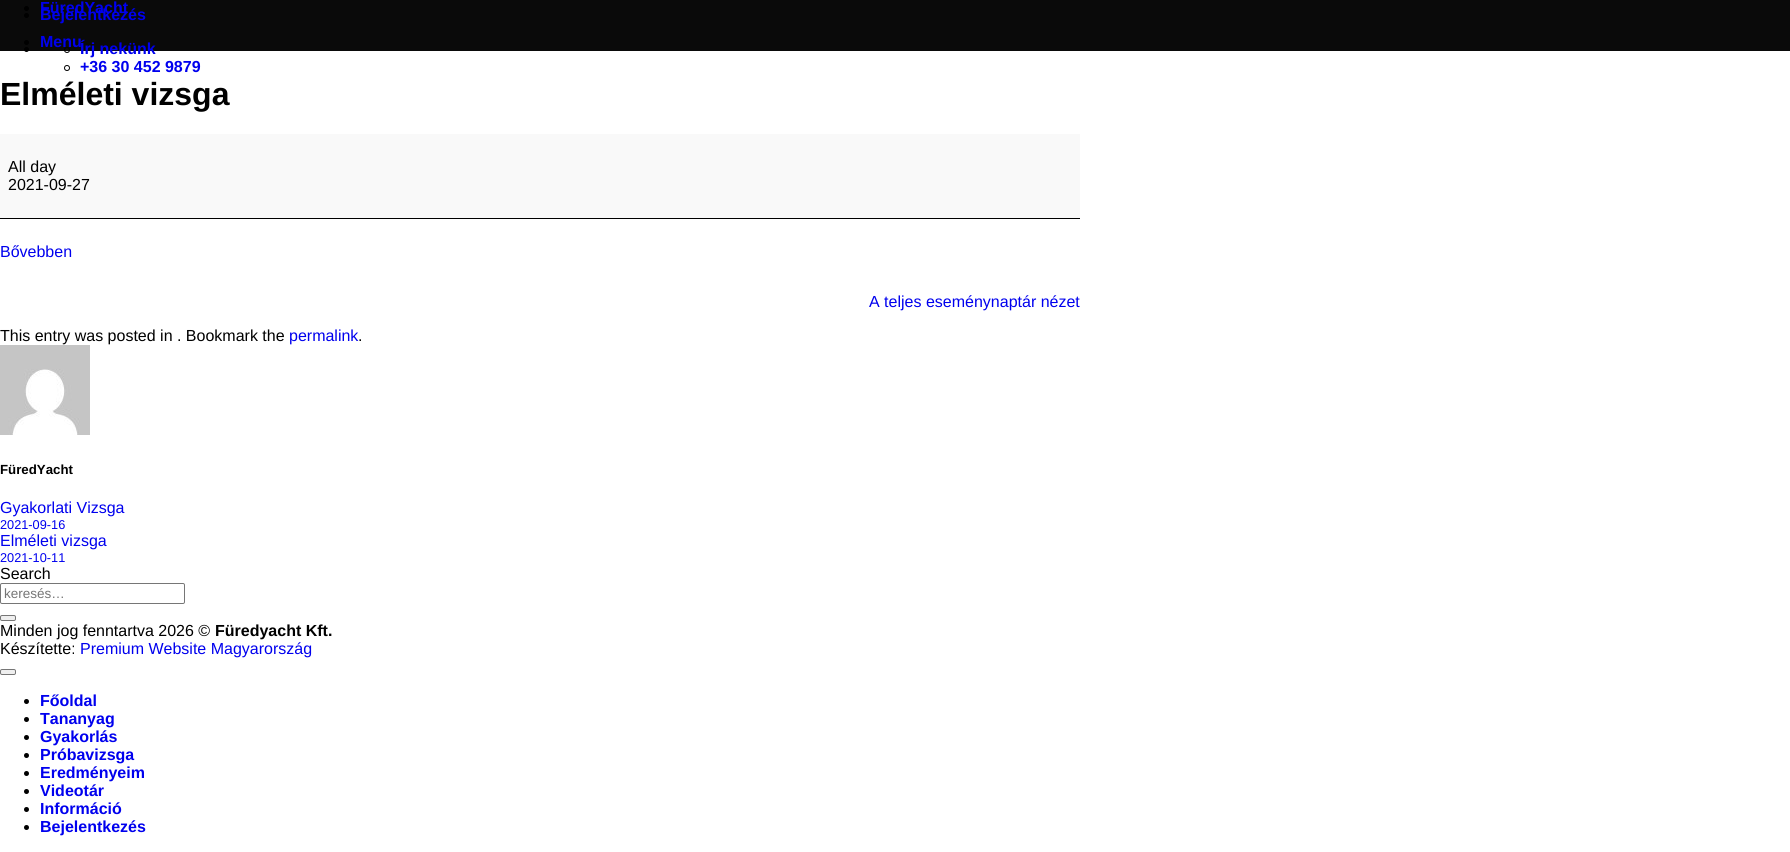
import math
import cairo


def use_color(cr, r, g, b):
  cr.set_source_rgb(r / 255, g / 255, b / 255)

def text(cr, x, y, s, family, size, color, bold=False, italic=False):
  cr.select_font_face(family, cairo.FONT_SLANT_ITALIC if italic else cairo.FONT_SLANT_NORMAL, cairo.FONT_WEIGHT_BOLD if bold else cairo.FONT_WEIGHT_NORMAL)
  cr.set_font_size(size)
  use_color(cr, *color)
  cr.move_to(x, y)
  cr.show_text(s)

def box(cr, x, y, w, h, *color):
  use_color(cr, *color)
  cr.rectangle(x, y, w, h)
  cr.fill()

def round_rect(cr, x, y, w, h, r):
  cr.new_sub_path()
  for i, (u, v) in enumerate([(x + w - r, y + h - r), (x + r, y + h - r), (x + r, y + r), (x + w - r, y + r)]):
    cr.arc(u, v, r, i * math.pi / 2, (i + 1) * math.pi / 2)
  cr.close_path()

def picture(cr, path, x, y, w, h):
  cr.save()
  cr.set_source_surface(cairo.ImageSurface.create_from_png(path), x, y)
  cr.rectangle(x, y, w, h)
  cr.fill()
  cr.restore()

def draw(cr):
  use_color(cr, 255, 255, 255)
  cr.paint()
  box(cr, 0, 0, 1790, 51, 10, 10, 10)
  use_color(cr, 0, 0, 0)
  cr.arc(26.5, 8.5, 2.5, 0, 2 * math.pi)
  cr.fill()
  cr.arc(26.5, 42.5, 2.5, 0, 2 * math.pi)
  cr.fill()
  cr.arc(26.5, 15.5, 2.5, 0, 2 * math.pi)
  cr.fill()
  cr.arc(26.5, 49.5, 2.5, 0, 2 * math.pi)
  cr.fill()
  cr.arc(67, 50, 2.5, 0, 2 * math.pi)
  cr.set_line_width(1)
  cr.stroke()
  cr.arc(67, 68, 2.5, 0, 2 * math.pi)
  cr.stroke()
  box(cr, 0, 134, 1080, 84, 249, 249, 249)
  box(cr, 0, 218, 1080, 1, 0, 0, 0)
  picture(cr, "img_01.png", 0, 345, 90, 90)
  round_rect(cr, 0.5, 583.5, 184, 20, 1.5)
  use_color(cr, 118, 118, 118)
  cr.stroke()
  use_color(cr, 239, 239, 239)
  round_rect(cr, 0.5, 615.5, 15, 5, 1.5)
  cr.fill_preserve()
  use_color(cr, 118, 118, 118)
  cr.stroke()
  use_color(cr, 239, 239, 239)
  round_rect(cr, 0.5, 669.5, 15, 5, 1.5)
  cr.fill_preserve()
  use_color(cr, 118, 118, 118)
  cr.stroke()
  use_color(cr, 0, 0, 0)
  cr.arc(26.5, 701.5, 2.5, 0, 2 * math.pi)
  cr.fill()
  cr.arc(26.5, 719.5, 2.5, 0, 2 * math.pi)
  cr.fill()
  cr.arc(26.5, 737.5, 2.5, 0, 2 * math.pi)
  cr.fill()
  cr.arc(26.5, 755.5, 2.5, 0, 2 * math.pi)
  cr.fill()
  cr.arc(26.5, 773.5, 2.5, 0, 2 * math.pi)
  cr.fill()
  cr.arc(26.5, 791.5, 2.5, 0, 2 * math.pi)
  cr.fill()
  cr.arc(26.5, 809.5, 2.5, 0, 2 * math.pi)
  cr.fill()
  cr.arc(26.5, 827.5, 2.5, 0, 2 * math.pi)
  cr.fill()
  text(cr, 40, 20, "Bejelentkezés", "Liberation Sans", 16, (0, 0, 238), bold=True)
  text(cr, 40, 13, "FüredYacht", "Liberation Sans", 16, (0, 0, 238), bold=True)
  text(cr, 80, 54, "Írj nekünk", "Liberation Sans", 16, (0, 0, 238), bold=True)
  text(cr, 40, 47, "Menu", "Liberation Sans", 16, (0, 0, 238), bold=True)
  text(cr, 80, 72, "+36 30 452 9879", "Liberation Sans", 16, (0, 0, 238), bold=True)
  text(cr, 0, 105, "Elméleti vizsga", "Liberation Sans", 32, (0, 0, 0), bold=True)
  text(cr, 8, 172, "All day", "Liberation Sans", 16, (0, 0, 0))
  text(cr, 8, 190, "2021-09-27", "Liberation Sans", 16, (0, 0, 0))
  text(cr, 0, 257, "Bővebben", "Liberation Sans", 16, (0, 0, 238))
  text(cr, 869, 307, "A teljes eseménynaptár nézet", "Liberation Sans", 16, (0, 0, 238))
  text(cr, 0, 341, "This entry was posted in . Bookmark the", "Liberation Sans", 16, (0, 0, 0))
  text(cr, 289, 341, "permalink", "Liberation Sans", 16, (0, 0, 238))
  text(cr, 358, 341, ".", "Liberation Sans", 16, (0, 0, 0))
  text(cr, 0, 474, "FüredYacht", "Liberation Sans", 13.25, (0, 0, 0), bold=True)
  text(cr, 0, 513, "Gyakorlati Vizsga", "Liberation Sans", 16, (0, 0, 238))
  text(cr, 0, 529, "2021-09-16", "Liberation Sans", 12.75, (0, 0, 238))
  text(cr, 0, 546, "Elméleti vizsga", "Liberation Sans", 16, (0, 0, 238))
  text(cr, 0, 562, "2021-10-11", "Liberation Sans", 12.75, (0, 0, 238))
  text(cr, 0, 579, "Search", "Liberation Sans", 16, (0, 0, 0))
  text(cr, 4, 598, "keresés…", "Liberation Sans", 13.5, (117, 117, 117))
  text(cr, 0, 636, "Minden jog fenntartva 2026 ©", "Liberation Sans", 16, (0, 0, 0))
  text(cr, 215, 636, "Füredyacht Kft.", "Liberation Sans", 16, (0, 0, 0), bold=True)
  text(cr, 0, 654, "Készítette:", "Liberation Sans", 16, (0, 0, 0))
  text(cr, 80, 654, "Premium Website Magyarország", "Liberation Sans", 16, (0, 0, 238))
  text(cr, 40, 706, "Főoldal", "Liberation Sans", 16, (0, 0, 238), bold=True)
  text(cr, 40, 724, "Tananyag", "Liberation Sans", 16, (0, 0, 238), bold=True)
  text(cr, 40, 742, "Gyakorlás", "Liberation Sans", 16, (0, 0, 238), bold=True)
  text(cr, 40, 760, "Próbavizsga", "Liberation Sans", 16, (0, 0, 238), bold=True)
  text(cr, 40, 778, "Eredményeim", "Liberation Sans", 16, (0, 0, 238), bold=True)
  text(cr, 40, 796, "Videotár", "Liberation Sans", 16, (0, 0, 238), bold=True)
  text(cr, 40, 814, "Információ", "Liberation Sans", 16, (0, 0, 238), bold=True)
  text(cr, 40, 832, "Bejelentkezés", "Liberation Sans", 16, (0, 0, 238), bold=True)


surface = cairo.ImageSurface(cairo.FORMAT_RGB24, 1790, 852)
cr = cairo.Context(surface)
options = cairo.FontOptions()
options.set_hint_metrics(cairo.HINT_METRICS_OFF)
options.set_hint_style(cairo.HINT_STYLE_NONE)
cr.set_font_options(options)
cr.set_miter_limit(4)
draw(cr)
surface.write_to_png("out.png")
